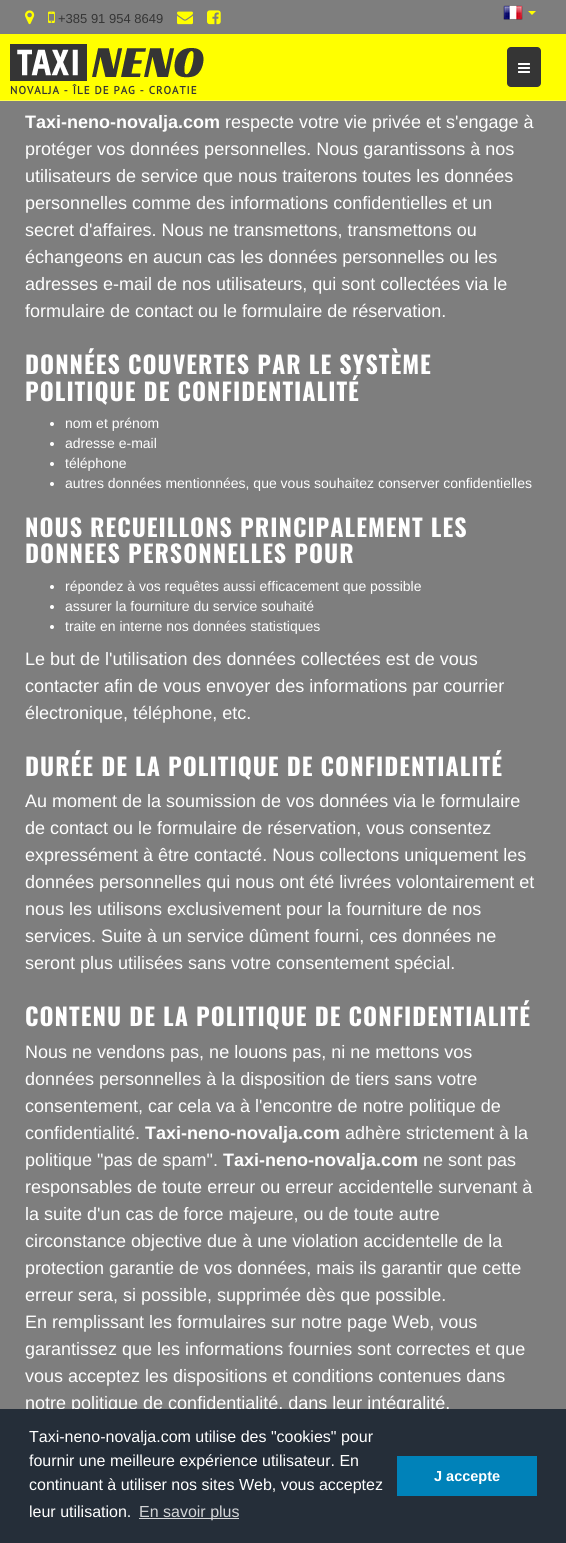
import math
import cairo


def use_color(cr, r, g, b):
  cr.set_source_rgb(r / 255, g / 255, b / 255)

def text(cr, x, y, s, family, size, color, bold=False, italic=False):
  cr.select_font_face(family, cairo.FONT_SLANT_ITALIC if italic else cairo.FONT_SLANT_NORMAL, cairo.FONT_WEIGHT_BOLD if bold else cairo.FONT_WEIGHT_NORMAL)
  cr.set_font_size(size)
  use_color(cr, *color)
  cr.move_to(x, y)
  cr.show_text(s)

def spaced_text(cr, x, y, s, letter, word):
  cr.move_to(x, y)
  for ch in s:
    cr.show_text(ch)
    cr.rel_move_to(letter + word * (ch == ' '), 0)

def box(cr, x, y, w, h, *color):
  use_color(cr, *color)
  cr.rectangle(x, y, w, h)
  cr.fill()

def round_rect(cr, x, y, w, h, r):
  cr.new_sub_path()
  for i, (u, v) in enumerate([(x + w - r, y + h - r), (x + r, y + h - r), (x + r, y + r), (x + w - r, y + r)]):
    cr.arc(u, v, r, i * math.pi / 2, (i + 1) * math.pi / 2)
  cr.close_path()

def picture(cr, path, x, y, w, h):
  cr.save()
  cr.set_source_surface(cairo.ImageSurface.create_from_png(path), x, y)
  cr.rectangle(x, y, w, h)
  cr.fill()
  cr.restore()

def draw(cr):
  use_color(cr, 126, 126, 126)
  cr.paint()
  picture(cr, "img_01.png", 25, 10, 10, 15)
  picture(cr, "img_02.png", 48, 11, 7, 12)
  picture(cr, "img_03.png", 177, 11, 16, 14)
  picture(cr, "img_04.png", 207, 10, 14, 15)
  picture(cr, "img_05.png", 503, 5, 20, 15)
  use_color(cr, 255, 255, 0)
  cr.new_path()
  cr.move_to(528, 11)
  cr.line_to(536, 11)
  cr.line_to(532, 15)
  cr.close_path()
  cr.fill()
  box(cr, 0, 34, 566, 66, 255, 255, 0)
  box(cr, 0, 100, 566, 1, 255, 255, 77)
  use_color(cr, 53, 53, 53)
  round_rect(cr, 507, 47, 34, 40, 4)
  cr.fill()
  picture(cr, "img_06.png", 518, 63, 12, 10)
  picture(cr, "img_07.png", 10, 44, 194, 37)
  use_color(cr, 255, 255, 255)
  cr.arc(52, 424, 2, 0, 2 * math.pi)
  cr.fill()
  cr.arc(52, 444, 2, 0, 2 * math.pi)
  cr.fill()
  cr.arc(52, 464, 2, 0, 2 * math.pi)
  cr.fill()
  cr.arc(52, 484, 2, 0, 2 * math.pi)
  cr.fill()
  cr.arc(52, 587, 2, 0, 2 * math.pi)
  cr.fill()
  cr.arc(52, 607, 2, 0, 2 * math.pi)
  cr.fill()
  cr.arc(52, 627, 2, 0, 2 * math.pi)
  cr.fill()
  text(cr, 58, 23, "+385 91 954 8649", "Liberation Sans", 13, (53, 53, 53))
  cr.select_font_face("PT Sans", cairo.FONT_SLANT_NORMAL, cairo.FONT_WEIGHT_BOLD)
  cr.set_font_size(11)
  spaced_text(cr, 10, 94, "NOVALJA - ÎLE DE PAG - CROATIE", 1, 0)
  text(cr, 25, 128, "Taxi-neno-novalja.com", "Liberation Sans", 18, (255, 255, 255), bold=True)
  text(cr, 225, 128, "respecte votre vie privée et s'engage à", "Liberation Sans", 18, (255, 255, 255))
  text(cr, 25, 155, "protéger vos données personnelles. Nous garantissons à nos", "Liberation Sans", 18, (255, 255, 255))
  text(cr, 25, 182, "utilisateurs de service que nous traiterons toutes les données", "Liberation Sans", 18, (255, 255, 255))
  text(cr, 25, 209, "personnelles comme des informations confidentielles et un", "Liberation Sans", 18, (255, 255, 255))
  text(cr, 25, 236, "secret d'affaires. Nous ne transmettons, transmettons ou", "Liberation Sans", 18, (255, 255, 255))
  text(cr, 25, 263, "échangeons en aucun cas les données personnelles ou les", "Liberation Sans", 18, (255, 255, 255))
  text(cr, 25, 290, "adresses e-mail de nos utilisateurs, qui sont collectées via le", "Liberation Sans", 18, (255, 255, 255))
  text(cr, 25, 317, "formulaire de contact ou le formulaire de réservation.", "Liberation Sans", 18, (255, 255, 255))
  cr.select_font_face("Oswald", cairo.FONT_SLANT_NORMAL, cairo.FONT_WEIGHT_BOLD)
  cr.set_font_size(24)
  spaced_text(cr, 25, 374, "DONNÉES COUVERTES PAR LE SYSTÈME", 1, 0)
  spaced_text(cr, 25, 401, "POLITIQUE DE CONFIDENTIALITÉ", 1, 0)
  text(cr, 65, 428, "nom et prénom", "Liberation Sans", 14, (255, 255, 255))
  text(cr, 65, 448, "adresse e-mail", "Liberation Sans", 14, (255, 255, 255))
  text(cr, 65, 468, "téléphone", "Liberation Sans", 14, (255, 255, 255))
  text(cr, 65, 488, "autres données mentionnées, que vous souhaitez conserver confidentielles", "Liberation Sans", 14, (255, 255, 255))
  cr.select_font_face("Oswald", cairo.FONT_SLANT_NORMAL, cairo.FONT_WEIGHT_BOLD)
  cr.set_font_size(24)
  spaced_text(cr, 25, 537, "NOUS RECUEILLONS PRINCIPALEMENT LES", 1, 0)
  spaced_text(cr, 25, 563, "DONNEES PERSONNELLES POUR", 1, 0)
  text(cr, 65, 591, "répondez à vos requêtes aussi efficacement que possible", "Liberation Sans", 14, (255, 255, 255))
  text(cr, 65, 611, "assurer la fourniture du service souhaité", "Liberation Sans", 14, (255, 255, 255))
  text(cr, 65, 631, "traite en interne nos données statistiques", "Liberation Sans", 14, (255, 255, 255))
  text(cr, 25, 665, "Le but de l'utilisation des données collectées est de vous", "Liberation Sans", 18, (255, 255, 255))
  text(cr, 25, 692, "contacter afin de vous envoyer des informations par courrier", "Liberation Sans", 18, (255, 255, 255))
  text(cr, 25, 719, "électronique, téléphone, etc.", "Liberation Sans", 18, (255, 255, 255))
  cr.select_font_face("Oswald", cairo.FONT_SLANT_NORMAL, cairo.FONT_WEIGHT_BOLD)
  cr.set_font_size(24)
  spaced_text(cr, 25, 776, "DURÉE DE LA POLITIQUE DE CONFIDENTIALITÉ", 1, 0)
  text(cr, 25, 807, "Au moment de la soumission de vos données via le formulaire", "Liberation Sans", 18, (255, 255, 255))
  text(cr, 25, 834, "de contact ou le formulaire de réservation, vous consentez", "Liberation Sans", 18, (255, 255, 255))
  text(cr, 25, 861, "expressément à être contacté. Nous collectons uniquement les", "Liberation Sans", 18, (255, 255, 255))
  text(cr, 25, 888, "données personnelles qui nous ont été livrées volontairement et", "Liberation Sans", 18, (255, 255, 255))
  text(cr, 25, 915, "nous les utilisons exclusivement pour la fourniture de nos", "Liberation Sans", 18, (255, 255, 255))
  text(cr, 25, 942, "services. Suite à un service dûment fourni, ces données ne", "Liberation Sans", 18, (255, 255, 255))
  text(cr, 25, 969, "seront plus utilisées sans votre consentement spécial.", "Liberation Sans", 18, (255, 255, 255))
  cr.select_font_face("Oswald", cairo.FONT_SLANT_NORMAL, cairo.FONT_WEIGHT_BOLD)
  cr.set_font_size(24)
  spaced_text(cr, 25, 1026, "CONTENU DE LA POLITIQUE DE CONFIDENTIALITÉ", 1, 0)
  text(cr, 25, 1058, "Nous ne vendons pas, ne louons pas, ni ne mettons vos", "Liberation Sans", 18, (255, 255, 255))
  text(cr, 25, 1085, "données personnelles à la disposition de tiers sans votre", "Liberation Sans", 18, (255, 255, 255))
  text(cr, 25, 1112, "consentement, car cela va à l'encontre de notre politique de", "Liberation Sans", 18, (255, 255, 255))
  text(cr, 25, 1139, "confidentialité.", "Liberation Sans", 18, (255, 255, 255))
  text(cr, 145, 1139, "Taxi-neno-novalja.com", "Liberation Sans", 18, (255, 255, 255), bold=True)
  text(cr, 345, 1139, "adhère strictement à la", "Liberation Sans", 18, (255, 255, 255))
  text(cr, 25, 1166, "politique \"pas de spam\".", "Liberation Sans", 18, (255, 255, 255))
  text(cr, 223, 1166, "Taxi-neno-novalja.com", "Liberation Sans", 18, (255, 255, 255), bold=True)
  text(cr, 423, 1166, "ne sont pas", "Liberation Sans", 18, (255, 255, 255))
  text(cr, 25, 1193, "responsables de toute erreur ou erreur accidentelle survenant à", "Liberation Sans", 18, (255, 255, 255))
  text(cr, 25, 1220, "la suite d'un cas de force majeure, ou de toute autre", "Liberation Sans", 18, (255, 255, 255))
  text(cr, 25, 1247, "circonstance objective due à une violation accidentelle de la", "Liberation Sans", 18, (255, 255, 255))
  text(cr, 25, 1274, "protection garantie de vos données, mais ils garantir que cette", "Liberation Sans", 18, (255, 255, 255))
  text(cr, 25, 1301, "erreur sera, si possible, supprimée dès que possible.", "Liberation Sans", 18, (255, 255, 255))
  text(cr, 25, 1328, "En remplissant les formulaires sur notre page Web, vous", "Liberation Sans", 18, (255, 255, 255))
  text(cr, 25, 1355, "garantissez que les informations fournies sont correctes et que", "Liberation Sans", 18, (255, 255, 255))
  text(cr, 25, 1382, "vous acceptez les dispositions et conditions contenues dans", "Liberation Sans", 18, (255, 255, 255))
  text(cr, 25, 1409, "notre politique de confidentialité, dans leur intégralité.", "Liberation Sans", 18, (255, 255, 255))
  box(cr, 0, 1409, 566, 134, 37, 46, 57)
  text(cr, 29, 1442, "Taxi-neno-novalja.com utilise des \"cookies\" pour", "Liberation Sans", 16, (255, 255, 255))
  text(cr, 29, 1466, "fournir une meilleure expérience utilisateur. En", "Liberation Sans", 16, (255, 255, 255))
  text(cr, 29, 1490, "continuant à utiliser nos sites Web, vous acceptez", "Liberation Sans", 16, (255, 255, 255))
  text(cr, 29, 1517, "leur utilisation.", "Liberation Sans", 16, (255, 255, 255))
  box(cr, 139, 1518, 100, 1, 211, 213, 215)
  text(cr, 139, 1517, "En savoir plus", "Liberation Sans", 16, (211, 213, 215))
  box(cr, 397, 1456, 140, 40, 0, 130, 185)
  text(cr, 434, 1481, "J accepte", "Liberation Sans", 14.5, (255, 255, 255), bold=True)


surface = cairo.ImageSurface(cairo.FORMAT_RGB24, 566, 1543)
cr = cairo.Context(surface)
options = cairo.FontOptions()
options.set_hint_metrics(cairo.HINT_METRICS_OFF)
options.set_hint_style(cairo.HINT_STYLE_NONE)
cr.set_font_options(options)
cr.set_miter_limit(4)
draw(cr)
surface.write_to_png("out.png")
